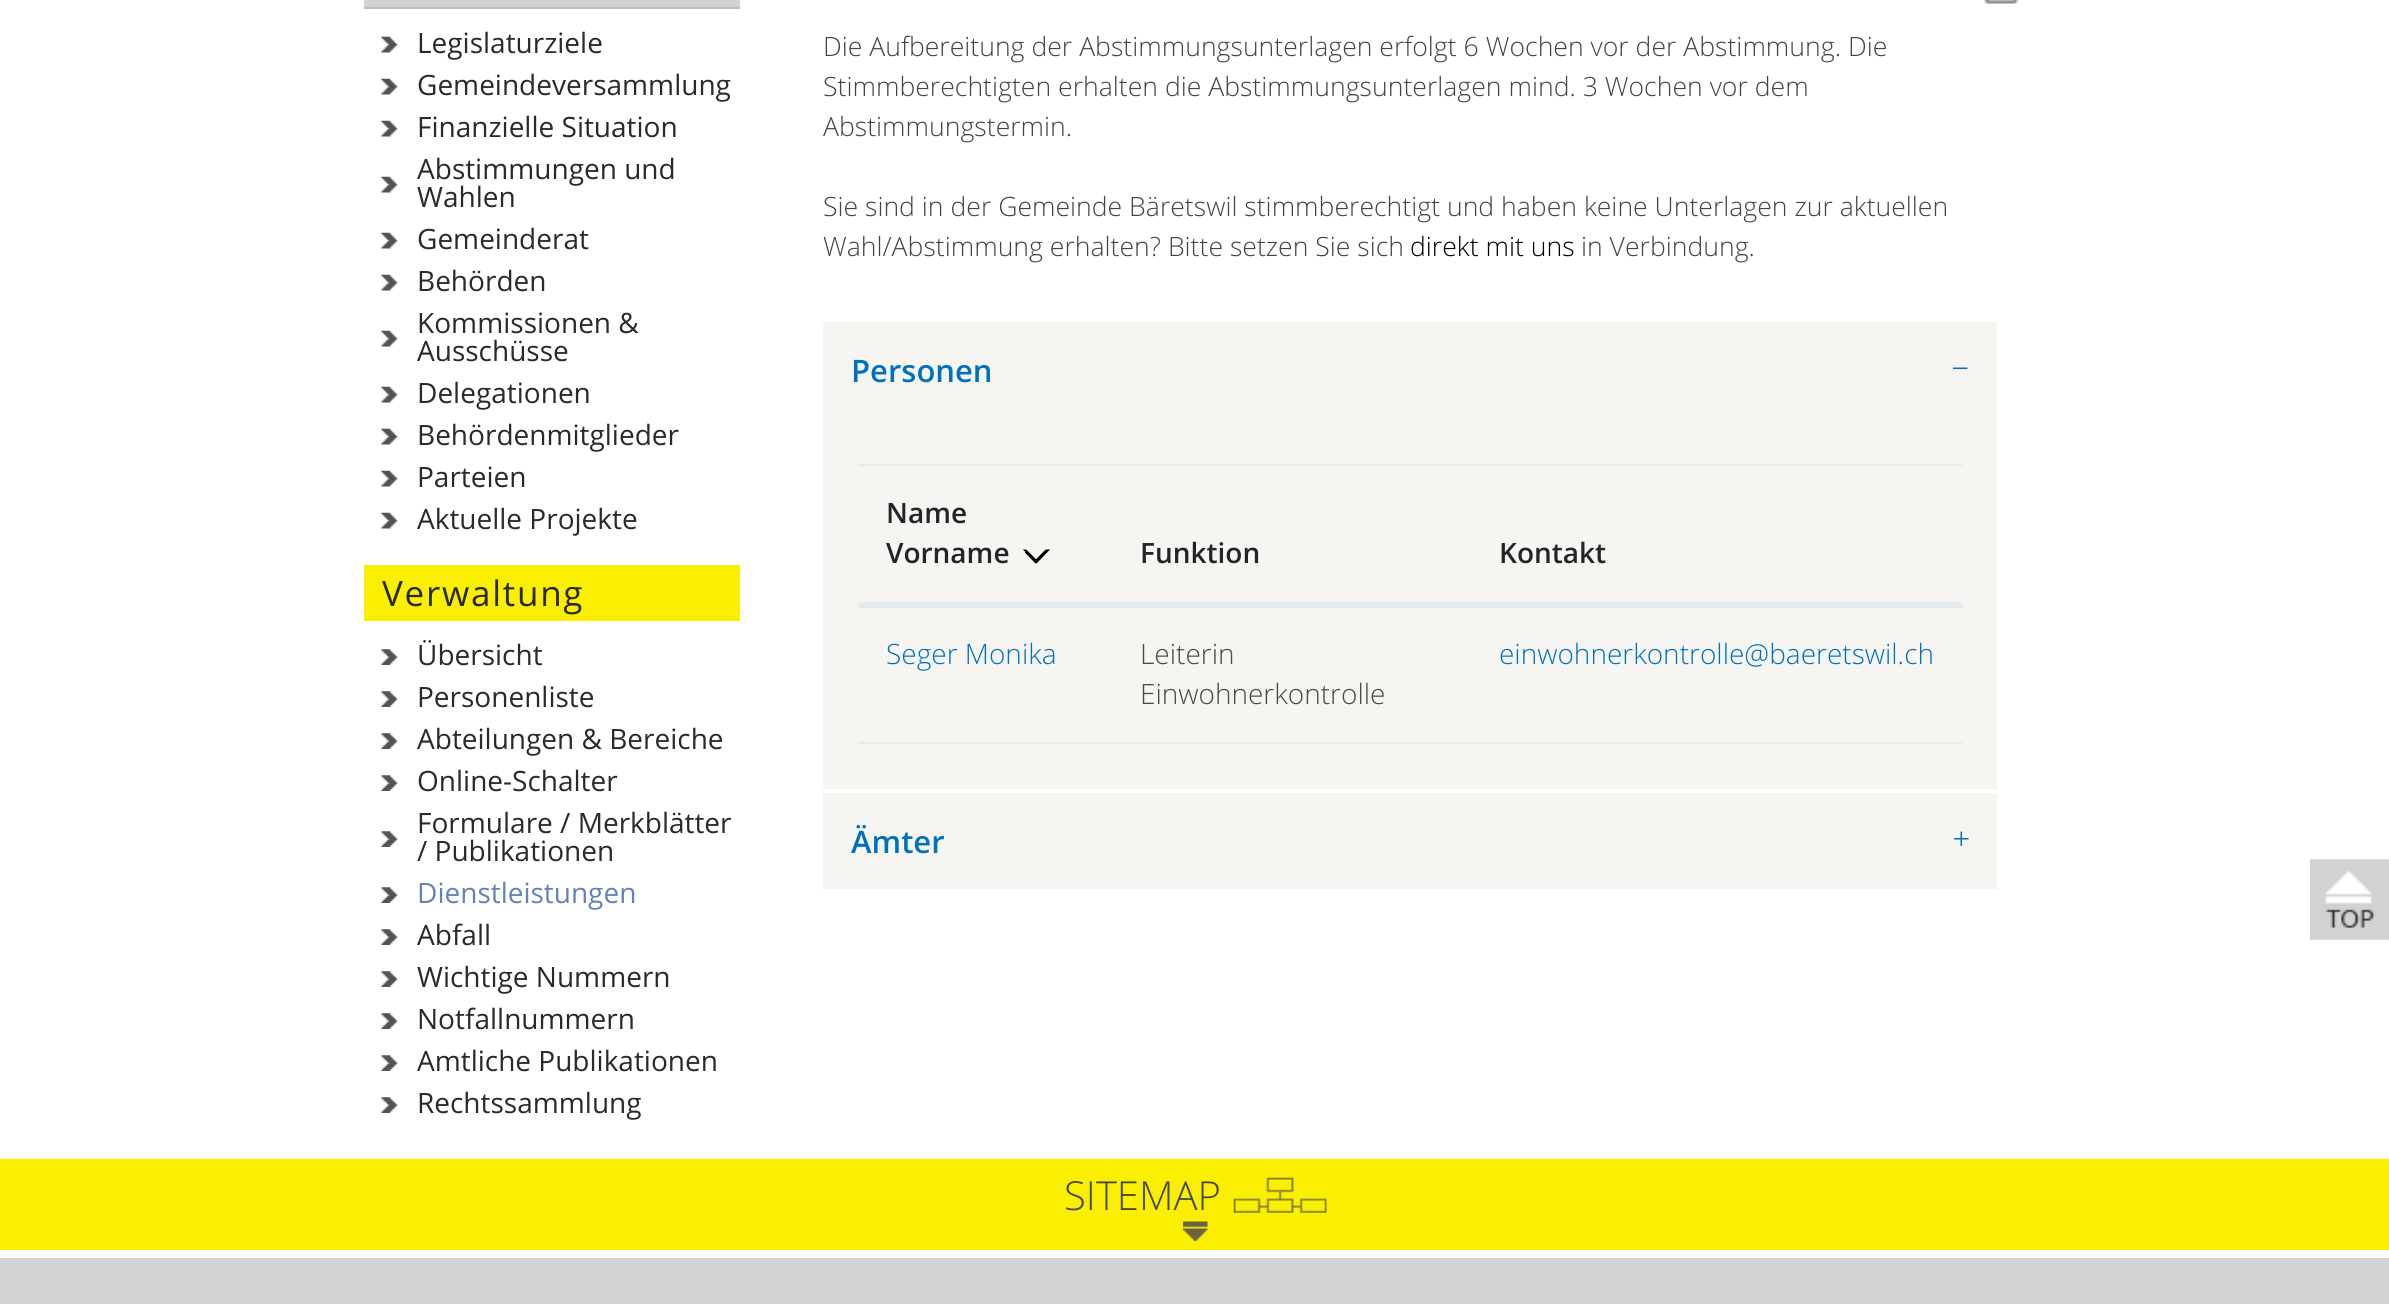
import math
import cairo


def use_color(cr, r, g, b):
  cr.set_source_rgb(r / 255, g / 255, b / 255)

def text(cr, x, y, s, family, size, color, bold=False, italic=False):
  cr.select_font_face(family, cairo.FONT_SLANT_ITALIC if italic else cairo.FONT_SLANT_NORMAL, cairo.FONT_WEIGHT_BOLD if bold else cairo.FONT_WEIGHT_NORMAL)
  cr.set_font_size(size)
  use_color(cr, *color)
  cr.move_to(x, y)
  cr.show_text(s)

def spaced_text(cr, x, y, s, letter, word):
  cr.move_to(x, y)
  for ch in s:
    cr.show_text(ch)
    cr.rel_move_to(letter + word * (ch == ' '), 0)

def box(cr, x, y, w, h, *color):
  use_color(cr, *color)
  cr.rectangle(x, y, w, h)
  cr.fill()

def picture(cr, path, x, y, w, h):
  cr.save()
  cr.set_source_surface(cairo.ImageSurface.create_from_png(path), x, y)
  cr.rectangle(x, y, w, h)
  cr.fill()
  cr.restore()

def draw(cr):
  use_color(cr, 255, 255, 255)
  cr.paint()
  box(cr, 364, 0, 376, 7, 209, 210, 212)
  box(cr, 364, 7, 376, 2, 191, 191, 191)
  picture(cr, "img_01.png", 381, 36, 17, 17)
  picture(cr, "img_01.png", 381, 78, 17, 17)
  picture(cr, "img_01.png", 381, 120, 17, 17)
  picture(cr, "img_01.png", 381, 176, 17, 17)
  picture(cr, "img_01.png", 381, 232, 17, 17)
  picture(cr, "img_01.png", 381, 274, 17, 17)
  picture(cr, "img_01.png", 381, 330, 17, 17)
  picture(cr, "img_01.png", 381, 386, 17, 17)
  picture(cr, "img_01.png", 381, 428, 17, 17)
  picture(cr, "img_01.png", 381, 470, 17, 17)
  picture(cr, "img_01.png", 381, 512, 17, 17)
  box(cr, 364, 565, 376, 56, 250, 239, 0)
  picture(cr, "img_02.png", 381, 649, 17, 16)
  picture(cr, "img_03.png", 381, 691, 17, 16)
  picture(cr, "img_02.png", 381, 733, 17, 16)
  picture(cr, "img_03.png", 381, 775, 17, 16)
  picture(cr, "img_02.png", 381, 831, 17, 16)
  picture(cr, "img_03.png", 381, 887, 17, 16)
  picture(cr, "img_02.png", 381, 929, 17, 16)
  picture(cr, "img_02.png", 381, 971, 17, 16)
  picture(cr, "img_02.png", 381, 1013, 17, 16)
  picture(cr, "img_02.png", 381, 1055, 17, 16)
  picture(cr, "img_02.png", 381, 1097, 17, 16)
  picture(cr, "img_04.png", 1984, 0, 35, 4)
  box(cr, 823, 322, 1174, 467, 247, 245, 242)
  box(cr, 858, 464, 1104, 2, 230, 236, 238)
  box(cr, 858, 602, 1104, 4, 230, 236, 238)
  picture(cr, "img_05.png", 1018, 549, 33, 15)
  box(cr, 858, 606, 1104, 2, 230, 236, 238)
  box(cr, 858, 742, 1104, 2, 230, 236, 238)
  box(cr, 823, 793, 1174, 96, 247, 245, 242)
  picture(cr, "img_06.png", 2310, 859, 79, 82)
  box(cr, 0, 1159, 2389, 91, 250, 239, 1)
  picture(cr, "img_07.png", 1233, 1177, 94, 36)
  picture(cr, "img_08.png", 1183, 1221, 25, 20)
  box(cr, 0, 1258, 2389, 46, 209, 210, 212)
  text(cr, 417, 53, "Legislaturziele", "Open Sans", 28, (42, 42, 42))
  text(cr, 417, 95, "Gemeindeversammlung", "Open Sans", 28, (42, 42, 42))
  text(cr, 417, 137, "Finanzielle Situation", "Open Sans", 28, (42, 42, 42))
  text(cr, 417, 179, "Abstimmungen und", "Open Sans", 28, (42, 42, 42))
  text(cr, 417, 207, "Wahlen", "Open Sans", 28, (42, 42, 42))
  text(cr, 417, 249, "Gemeinderat", "Open Sans", 28, (42, 42, 42))
  text(cr, 417, 291, "Behörden", "Open Sans", 28, (42, 42, 42))
  text(cr, 417, 333, "Kommissionen &", "Open Sans", 28, (42, 42, 42))
  text(cr, 417, 361, "Ausschüsse", "Open Sans", 28, (42, 42, 42))
  text(cr, 417, 403, "Delegationen", "Open Sans", 28, (42, 42, 42))
  text(cr, 417, 445, "Behördenmitglieder", "Open Sans", 28, (42, 42, 42))
  text(cr, 417, 487, "Parteien", "Open Sans", 28, (42, 42, 42))
  text(cr, 417, 529, "Aktuelle Projekte", "Open Sans", 28, (42, 42, 42))
  cr.set_font_size(35)
  spaced_text(cr, 382, 606, "Verwaltung", 1.75, 0)
  text(cr, 417, 665, "Übersicht", "Open Sans", 28, (42, 42, 42))
  text(cr, 417, 707, "Personenliste", "Open Sans", 28, (42, 42, 42))
  text(cr, 417, 749, "Abteilungen & Bereiche", "Open Sans", 28, (42, 42, 42))
  text(cr, 417, 791, "Online-Schalter", "Open Sans", 28, (42, 42, 42))
  text(cr, 417, 833, "Formulare / Merkblätter", "Open Sans", 28, (42, 42, 42))
  text(cr, 417, 861, "/ Publikationen", "Open Sans", 28, (42, 42, 42))
  text(cr, 417, 903, "Dienstleistungen", "Open Sans", 28, (99, 132, 178))
  text(cr, 417, 945, "Abfall", "Open Sans", 28, (42, 42, 42))
  text(cr, 417, 987, "Wichtige Nummern", "Open Sans", 28, (42, 42, 42))
  text(cr, 417, 1029, "Notfallnummern", "Open Sans", 28, (42, 42, 42))
  text(cr, 417, 1071, "Amtliche Publikationen", "Open Sans", 28, (42, 42, 42))
  text(cr, 417, 1113, "Rechtssammlung", "Open Sans", 28, (42, 42, 42))
  text(cr, 823, 56, "Die Aufbereitung der Abstimmungsunterlagen erfolgt 6 Wochen vor der Abstimmung. Die", "Open Sans Light", 26.6, (65, 69, 72))
  text(cr, 823, 96, "Stimmberechtigten erhalten die Abstimmungsunterlagen mind. 3 Wochen vor dem", "Open Sans Light", 26.6, (65, 69, 72))
  text(cr, 823, 136, "Abstimmungstermin.", "Open Sans Light", 26.6, (65, 69, 72))
  text(cr, 823, 216, "Sie sind in der Gemeinde Bäretswil stimmberechtigt und haben keine Unterlagen zur aktuellen", "Open Sans Light", 26.6, (65, 69, 72))
  text(cr, 823, 256, "Wahl/Abstimmung erhalten? Bitte setzen Sie sich", "Open Sans Light", 26.6, (65, 69, 72))
  text(cr, 1410, 256, "direkt mit uns", "Open Sans Light", 26.6, (0, 0, 0))
  text(cr, 1581, 256, "in Verbindung.", "Open Sans Light", 26.6, (65, 69, 72))
  text(cr, 851, 382, "Personen", "Open Sans SemiBold", 31, (0, 113, 187))
  cr.save()
  cr.translate(1969, 358)
  cr.rotate(180 * math.pi / 180)
  text(cr, 0, 0, "−", "Liberation Serif", 31, (0, 113, 187))
  cr.restore()
  text(cr, 886, 523, "Name", "Open Sans SemiBold", 28, (33, 37, 41))
  text(cr, 886, 563, "Vorname", "Open Sans SemiBold", 28, (33, 37, 41))
  text(cr, 1140, 563, "Funktion", "Open Sans SemiBold", 28, (33, 37, 41))
  text(cr, 1499, 563, "Kontakt", "Open Sans SemiBold", 28, (33, 37, 41))
  text(cr, 886, 664, "Seger Monika", "Open Sans Light", 28, (0, 113, 187))
  text(cr, 1140, 664, "Leiterin", "Open Sans Light", 28, (72, 72, 72))
  text(cr, 1140, 704, "Einwohnerkontrolle", "Open Sans Light", 28, (72, 72, 72))
  text(cr, 1499, 664, "einwohnerkontrolle@baeretswil.ch", "Open Sans Light", 28, (0, 113, 187))
  text(cr, 851, 853, "Ämter", "Open Sans SemiBold", 31, (0, 113, 187))
  cr.save()
  cr.translate(1951, 830)
  cr.rotate(90 * math.pi / 180)
  text(cr, 0, 0, "+", "Liberation Serif", 31, (0, 113, 187))
  cr.restore()
  text(cr, 1064, 1210, "SITEMAP", "Open Sans Light", 40, (72, 72, 72))


surface = cairo.ImageSurface(cairo.FORMAT_RGB24, 2389, 1304)
cr = cairo.Context(surface)
options = cairo.FontOptions()
options.set_hint_metrics(cairo.HINT_METRICS_OFF)
options.set_hint_style(cairo.HINT_STYLE_NONE)
cr.set_font_options(options)
cr.set_miter_limit(4)
draw(cr)
surface.write_to_png("out.png")
